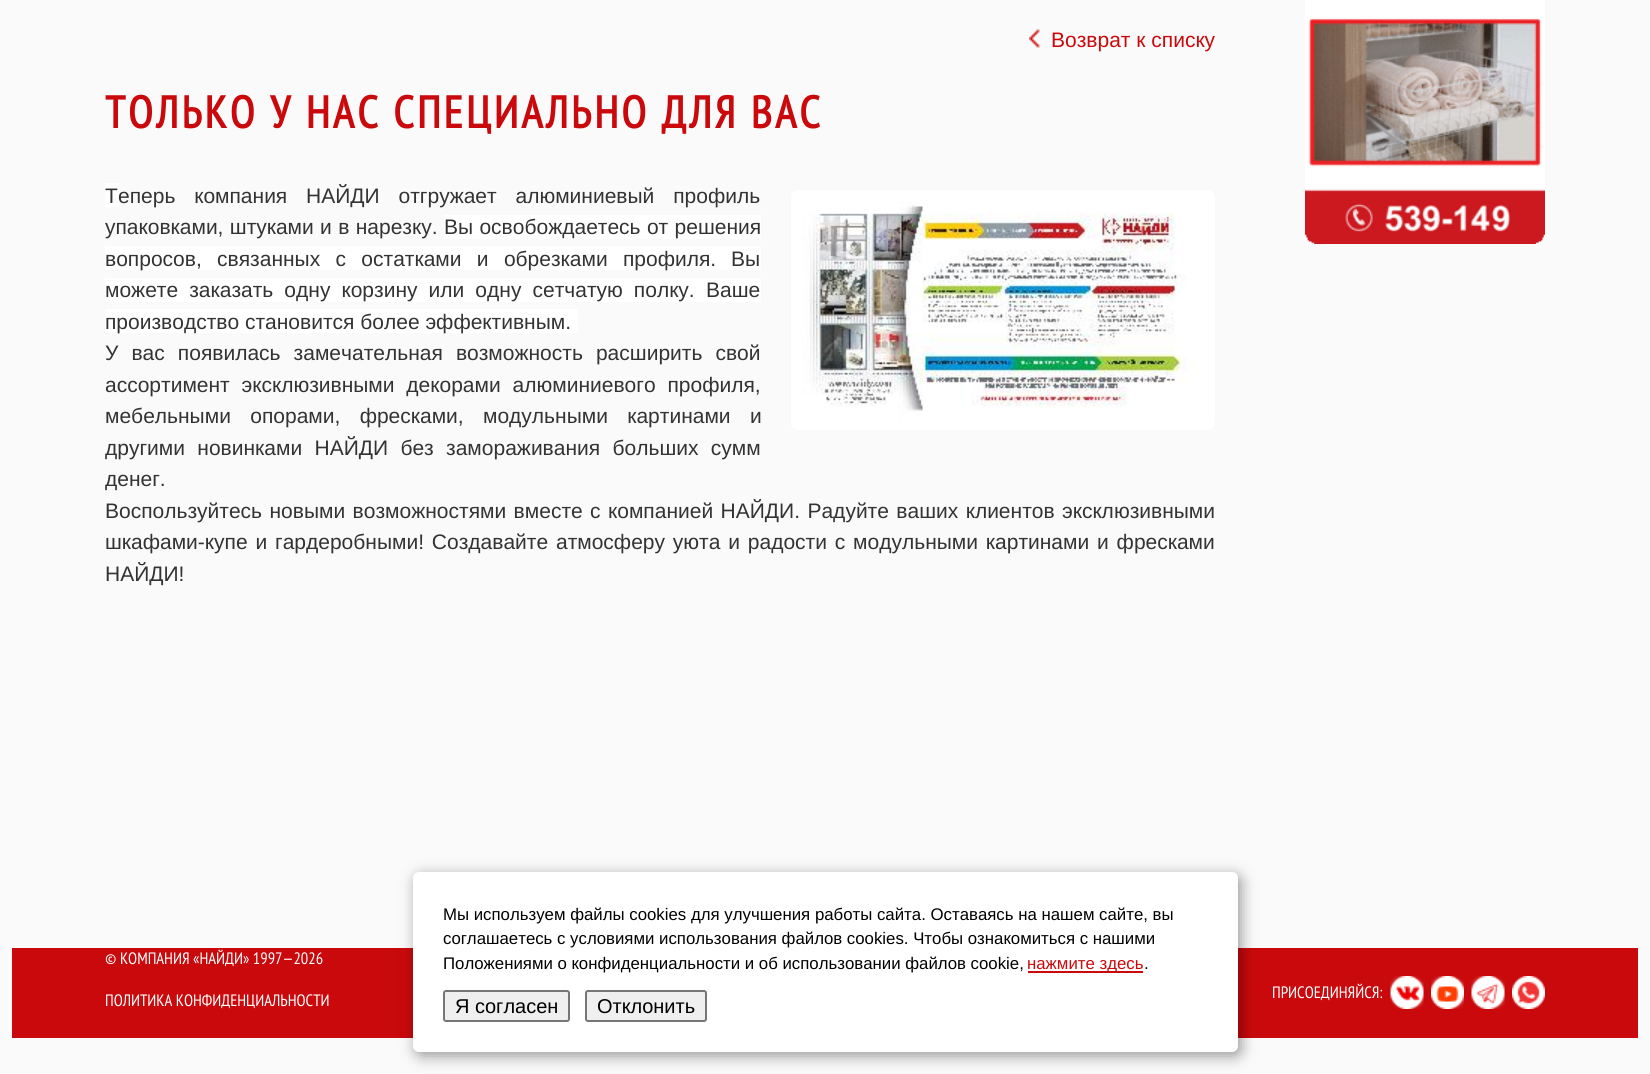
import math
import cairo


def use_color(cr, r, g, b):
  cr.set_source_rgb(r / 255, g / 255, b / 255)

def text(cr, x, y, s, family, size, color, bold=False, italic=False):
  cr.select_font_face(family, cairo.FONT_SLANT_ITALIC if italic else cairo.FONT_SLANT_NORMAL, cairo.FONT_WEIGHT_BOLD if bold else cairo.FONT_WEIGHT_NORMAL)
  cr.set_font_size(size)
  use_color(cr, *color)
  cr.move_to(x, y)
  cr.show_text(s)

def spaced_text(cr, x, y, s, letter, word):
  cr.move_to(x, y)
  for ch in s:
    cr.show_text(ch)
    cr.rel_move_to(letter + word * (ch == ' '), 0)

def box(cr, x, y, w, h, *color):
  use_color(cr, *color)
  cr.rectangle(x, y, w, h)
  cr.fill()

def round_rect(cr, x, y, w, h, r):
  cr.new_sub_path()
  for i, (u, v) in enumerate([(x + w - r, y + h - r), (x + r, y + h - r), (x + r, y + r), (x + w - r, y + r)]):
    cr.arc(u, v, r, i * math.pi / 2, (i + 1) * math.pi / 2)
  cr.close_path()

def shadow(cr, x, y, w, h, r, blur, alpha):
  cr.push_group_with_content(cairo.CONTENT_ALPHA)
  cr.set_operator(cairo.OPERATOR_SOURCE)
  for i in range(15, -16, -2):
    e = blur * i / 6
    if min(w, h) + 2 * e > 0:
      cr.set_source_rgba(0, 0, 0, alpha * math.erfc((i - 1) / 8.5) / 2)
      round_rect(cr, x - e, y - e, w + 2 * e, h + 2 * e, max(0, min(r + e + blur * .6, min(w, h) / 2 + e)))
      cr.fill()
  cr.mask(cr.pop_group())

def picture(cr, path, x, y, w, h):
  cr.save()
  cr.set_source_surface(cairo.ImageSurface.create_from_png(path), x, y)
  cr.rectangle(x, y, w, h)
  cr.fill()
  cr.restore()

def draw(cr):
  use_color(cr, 250, 250, 250)
  cr.paint()
  picture(cr, "img_01.png", 1029, 29, 11, 19)
  box(cr, 105, 183, 14, 24, 255, 255, 255)
  box(cr, 444, 215, 317, 24, 255, 255, 255)
  box(cr, 105, 246, 656, 24, 255, 255, 255)
  box(cr, 105, 278, 656, 24, 255, 255, 255)
  box(cr, 105, 309, 473, 24, 255, 255, 255)
  picture(cr, "img_02.png", 791, 190, 424, 240)
  picture(cr, "img_03.png", 1305, 0, 240, 244)
  box(cr, 12, 948, 1626, 90, 201, 9, 12)
  use_color(cr, 0, 0, 0)
  shadow(cr, 416, 876, 825, 180, 6, 7.5, 0.4)
  use_color(cr, 255, 255, 255)
  round_rect(cr, 413, 872, 825, 180, 6)
  cr.fill()
  box(cr, 1028, 971, 115, 2, 201, 9, 12)
  use_color(cr, 239, 239, 239)
  round_rect(cr, 444, 991, 125, 30, 2)
  cr.fill_preserve()
  use_color(cr, 118, 118, 118)
  cr.stroke()
  use_color(cr, 239, 239, 239)
  round_rect(cr, 586, 991, 120, 30, 2)
  cr.fill_preserve()
  use_color(cr, 118, 118, 118)
  cr.stroke()
  picture(cr, "img_04.png", 1390, 976, 34, 33)
  picture(cr, "img_05.png", 1431, 976, 33, 33)
  picture(cr, "img_06.png", 1471, 976, 34, 33)
  picture(cr, "img_07.png", 1512, 976, 33, 33)
  text(cr, 1051, 47, "Возврат к списку", "Liberation Sans", 21, (201, 9, 12))
  cr.select_font_face("PT Sans Narrow", cairo.FONT_SLANT_NORMAL, cairo.FONT_WEIGHT_BOLD)
  cr.set_font_size(45)
  spaced_text(cr, 105, 128, "ТОЛЬКО У НАС СПЕЦИАЛЬНО ДЛЯ ВАС", 3, 0)
  text(cr, 105, 203, "Т", "Liberation Sans", 21, (51, 51, 51))
  spaced_text(cr, 118, 203, "еперь компания НАЙДИ отгружает алюминиевый профиль", 0, 13)
  spaced_text(cr, 105, 234, "упаковками, штуками и в нарезку.", 0, 0.5)
  spaced_text(cr, 444, 234, "Вы освобождаетесь от решения", 0, 0.5)
  spaced_text(cr, 105, 266, "вопросов, связанных с остатками и обрезками профиля.", 0, 9.5)
  text(cr, 731, 266, "Вы", "Liberation Sans", 21, (51, 51, 51))
  spaced_text(cr, 105, 297, "можете заказать одну корзину или одну сетчатую полку.", 0, 5.25)
  text(cr, 706, 297, "Ваше", "Liberation Sans", 21, (51, 51, 51))
  text(cr, 105, 329, "производство становится более эффективным.", "Liberation Sans", 21, (51, 51, 51))
  spaced_text(cr, 105, 360, "У вас появилась замечательная возможность расширить свой", 0, 7.25)
  spaced_text(cr, 105, 392, "ассортимент эксклюзивными декорами алюминиевого профиля,", 0, 6)
  spaced_text(cr, 105, 423, "мебельными опорами, фресками, модульными картинами и", 0, 13.5)
  spaced_text(cr, 105, 455, "другими новинками НАЙДИ без замораживания больших сумм", 0, 6.5)
  text(cr, 105, 486, "денег.", "Liberation Sans", 21, (51, 51, 51))
  spaced_text(cr, 105, 518, "Воспользуйтесь новыми возможностями вместе с компанией НАЙДИ. Радуйте ваших клиентов эксклюзивными", 0, 1.6)
  spaced_text(cr, 105, 549, "шкафами-купе и гардеробными! Создавайте атмосферу уюта и радости с модульными картинами и фресками", 0, 2)
  text(cr, 105, 581, "НАЙДИ!", "Liberation Sans", 21, (51, 51, 51))
  text(cr, 443, 920, "Мы используем файлы cookies для улучшения работы сайта. Оставаясь на нашем сайте, вы", "Liberation Sans", 16.8, (0, 0, 0))
  text(cr, 443, 944, "соглашаетесь с условиями использования файлов cookies. Чтобы ознакомиться с нашими", "Liberation Sans", 16.8, (0, 0, 0))
  text(cr, 443, 969, "Положениями о конфиденциальности и об использовании файлов cookie,", "Liberation Sans", 16.8, (0, 0, 0))
  text(cr, 1027, 969, "нажмите здесь", "Liberation Sans", 16.8, (201, 9, 12))
  text(cr, 1144, 969, ".", "Liberation Sans", 16.8, (0, 0, 0))
  text(cr, 455, 1013, "Я согласен", "Liberation Sans", 20, (0, 0, 0))
  text(cr, 597, 1013, "Отклонить", "Liberation Sans", 20, (0, 0, 0))
  text(cr, 105, 964, "© КОМПАНИЯ «НАЙДИ» 1997—2026", "PT Sans Narrow", 16.5, (255, 255, 255))
  text(cr, 105, 1006, "ПОЛИТИКА КОНФИДЕНЦИАЛЬНОСТИ", "PT Sans Narrow", 16.5, (255, 255, 255))
  text(cr, 1272, 998, "ПРИСОЕДИНЯЙСЯ:", "PT Sans Narrow", 16.5, (255, 255, 255))


surface = cairo.ImageSurface(cairo.FORMAT_RGB24, 1650, 1074)
cr = cairo.Context(surface)
options = cairo.FontOptions()
options.set_hint_metrics(cairo.HINT_METRICS_OFF)
options.set_hint_style(cairo.HINT_STYLE_NONE)
cr.set_font_options(options)
cr.set_miter_limit(4)
draw(cr)
surface.write_to_png("out.png")
